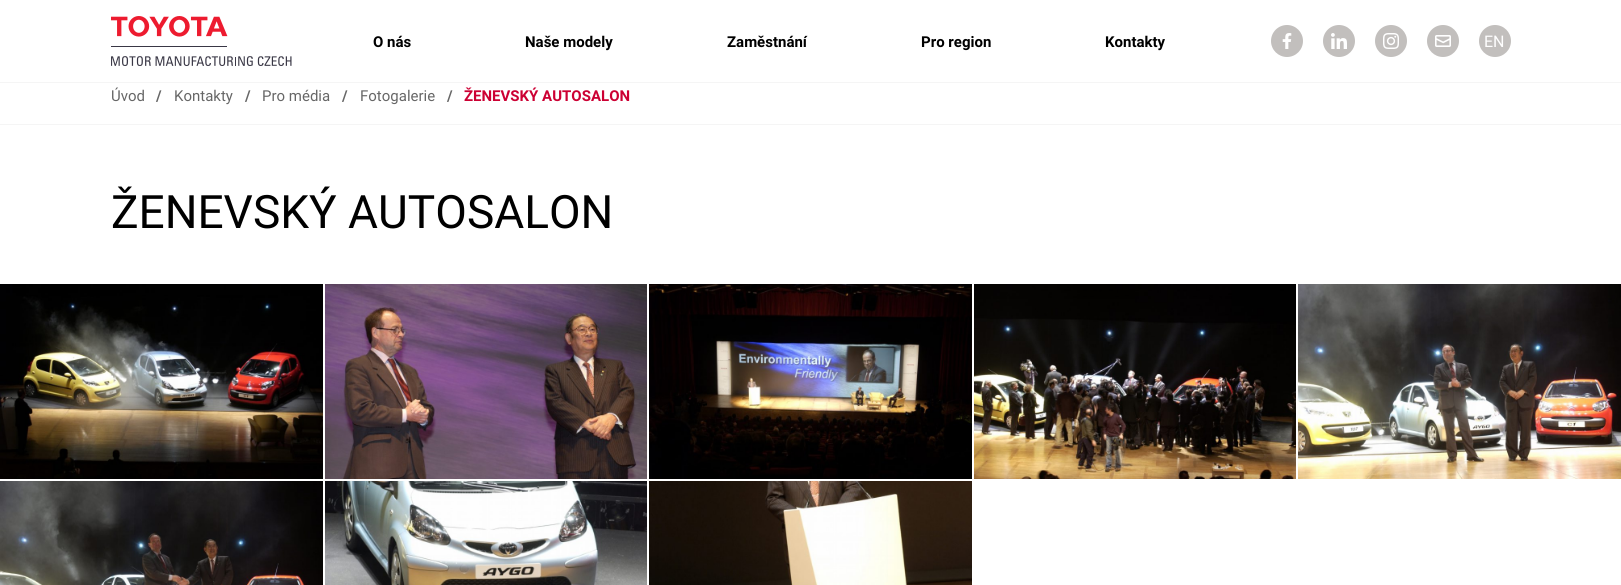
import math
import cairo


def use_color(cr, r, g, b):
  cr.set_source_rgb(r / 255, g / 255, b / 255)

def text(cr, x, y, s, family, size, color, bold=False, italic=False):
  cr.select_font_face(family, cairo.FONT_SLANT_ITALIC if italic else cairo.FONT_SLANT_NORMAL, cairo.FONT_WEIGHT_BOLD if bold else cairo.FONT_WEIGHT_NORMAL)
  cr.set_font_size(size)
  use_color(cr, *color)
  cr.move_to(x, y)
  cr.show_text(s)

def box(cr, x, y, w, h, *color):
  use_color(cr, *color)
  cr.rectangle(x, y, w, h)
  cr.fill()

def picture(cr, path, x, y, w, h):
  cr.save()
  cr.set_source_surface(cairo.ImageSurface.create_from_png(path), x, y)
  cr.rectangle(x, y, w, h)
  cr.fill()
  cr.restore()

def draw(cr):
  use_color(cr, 255, 255, 255)
  cr.paint()
  box(cr, 0, 82, 1621, 1, 245, 245, 245)
  picture(cr, "img_01.png", 111, 16, 181, 50)
  use_color(cr, 194, 191, 189)
  cr.arc(1287, 41, 16, 0, 2 * math.pi)
  cr.fill()
  picture(cr, "img_02.png", 1282, 33, 10, 16)
  cr.arc(1339, 41, 16, 0, 2 * math.pi)
  cr.fill()
  picture(cr, "img_03.png", 1331, 33, 16, 16)
  cr.arc(1391, 41, 16, 0, 2 * math.pi)
  cr.fill()
  picture(cr, "img_04.png", 1383, 33, 16, 16)
  cr.arc(1443, 41, 16, 0, 2 * math.pi)
  cr.fill()
  picture(cr, "img_05.png", 1435, 35, 16, 12)
  cr.arc(1495, 41, 16, 0, 2 * math.pi)
  cr.fill()
  box(cr, 0, 124, 1621, 1, 245, 245, 245)
  picture(cr, "img_06.png", 0, 284, 323, 195)
  picture(cr, "img_07.png", 325, 284, 322, 195)
  picture(cr, "img_08.png", 649, 284, 323, 195)
  picture(cr, "img_09.png", 974, 284, 322, 195)
  picture(cr, "img_10.png", 1298, 284, 323, 195)
  picture(cr, "img_11.png", 0, 481, 323, 104)
  picture(cr, "img_12.png", 325, 481, 322, 104)
  picture(cr, "img_13.png", 649, 481, 323, 104)
  text(cr, 373, 47, "O nás", "Roboto", 15, (0, 0, 0), bold=True)
  text(cr, 525, 47, "Naše modely", "Roboto", 15, (0, 0, 0), bold=True)
  text(cr, 727, 47, "Zaměstnání", "Roboto", 15, (0, 0, 0), bold=True)
  text(cr, 921, 47, "Pro region", "Roboto", 15, (0, 0, 0), bold=True)
  text(cr, 1105, 47, "Kontakty", "Roboto", 15, (0, 0, 0), bold=True)
  text(cr, 1484, 47, "EN", "Roboto", 16, (255, 255, 255))
  text(cr, 111, 101, "Úvod", "Roboto", 15, (102, 102, 102))
  text(cr, 156, 101, "/", "Roboto", 15, (102, 102, 102), bold=True)
  text(cr, 174, 101, "Kontakty", "Roboto", 15, (102, 102, 102))
  text(cr, 245, 101, "/", "Roboto", 15, (102, 102, 102), bold=True)
  text(cr, 262, 101, "Pro média", "Roboto", 15, (102, 102, 102))
  text(cr, 342, 101, "/", "Roboto", 15, (102, 102, 102), bold=True)
  text(cr, 360, 101, "Fotogalerie", "Roboto", 15, (102, 102, 102))
  text(cr, 447, 101, "/", "Roboto", 15, (102, 102, 102), bold=True)
  text(cr, 464, 101, "ŽENEVSKÝ AUTOSALON", "Roboto", 15, (204, 0, 51), bold=True)
  text(cr, 111, 228, "ŽENEVSKÝ AUTOSALON", "Roboto", 46, (0, 0, 0))


surface = cairo.ImageSurface(cairo.FORMAT_RGB24, 1621, 585)
cr = cairo.Context(surface)
options = cairo.FontOptions()
options.set_hint_metrics(cairo.HINT_METRICS_OFF)
options.set_hint_style(cairo.HINT_STYLE_NONE)
cr.set_font_options(options)
cr.set_miter_limit(4)
draw(cr)
surface.write_to_png("out.png")
